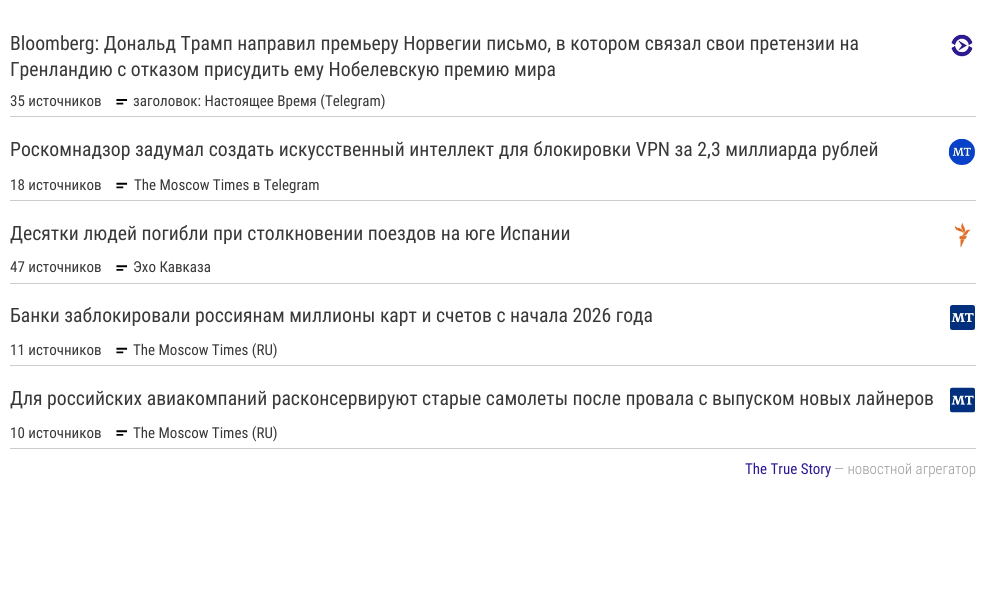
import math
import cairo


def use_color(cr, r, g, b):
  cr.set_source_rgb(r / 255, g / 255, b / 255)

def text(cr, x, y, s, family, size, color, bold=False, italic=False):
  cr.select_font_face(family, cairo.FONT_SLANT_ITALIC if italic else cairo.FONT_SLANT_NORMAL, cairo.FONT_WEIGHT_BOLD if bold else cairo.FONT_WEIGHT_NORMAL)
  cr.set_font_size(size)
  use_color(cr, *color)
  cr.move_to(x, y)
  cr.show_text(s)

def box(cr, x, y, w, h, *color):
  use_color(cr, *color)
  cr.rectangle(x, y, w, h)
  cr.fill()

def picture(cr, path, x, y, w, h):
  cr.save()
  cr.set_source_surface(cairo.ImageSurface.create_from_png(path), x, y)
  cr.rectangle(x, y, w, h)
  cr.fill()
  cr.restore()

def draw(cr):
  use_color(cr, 255, 255, 255)
  cr.paint()
  box(cr, 10, 448, 966, 1, 204, 204, 204)
  picture(cr, "img_01.png", 951, 34, 22, 23)
  picture(cr, "img_02.png", 116, 99, 12, 6)
  box(cr, 10, 116, 966, 1, 204, 204, 204)
  picture(cr, "img_03.png", 948, 138, 27, 27)
  picture(cr, "img_04.png", 116, 182, 12, 7)
  box(cr, 10, 200, 966, 1, 204, 204, 204)
  picture(cr, "img_05.png", 954, 222, 17, 26)
  picture(cr, "img_06.png", 116, 265, 12, 6)
  box(cr, 10, 283, 966, 1, 204, 204, 204)
  picture(cr, "img_07.png", 950, 305, 25, 25)
  picture(cr, "img_04.png", 116, 347, 12, 7)
  box(cr, 10, 365, 966, 1, 204, 204, 204)
  picture(cr, "img_08.png", 950, 387, 25, 26)
  picture(cr, "img_06.png", 116, 430, 12, 6)
  text(cr, 10, 50, "Bloomberg: Дональд Трамп направил премьеру Норвегии письмо, в котором связал свои претензии на", "Roboto Condensed", 19.7, (56, 56, 56))
  text(cr, 10, 76, "Гренландию с отказом присудить ему Нобелевскую премию мира", "Roboto Condensed", 19.7, (56, 56, 56))
  text(cr, 10, 106, "35 источников", "Roboto Condensed", 15, (56, 56, 56))
  text(cr, 133, 106, "заголовок: Настоящее Время (Telegram)", "Roboto Condensed", 15, (56, 56, 56))
  text(cr, 10, 156, "Роскомнадзор задумал создать искусственный интеллект для блокировки VPN за 2,3 миллиарда рублей", "Roboto Condensed", 19.7, (56, 56, 56))
  text(cr, 10, 190, "18 источников", "Roboto Condensed", 15, (56, 56, 56))
  text(cr, 134, 190, "The Moscow Times в Telegram", "Roboto Condensed", 15, (56, 56, 56))
  text(cr, 10, 240, "Десятки людей погибли при столкновении поездов на юге Испании", "Roboto Condensed", 19.7, (56, 56, 56))
  text(cr, 10, 272, "47 источников", "Roboto Condensed", 15, (56, 56, 56))
  text(cr, 133, 272, "Эхо Кавказа", "Roboto Condensed", 15, (56, 56, 56))
  text(cr, 10, 322, "Банки заблокировали россиянам миллионы карт и счетов с начала 2026 года", "Roboto Condensed", 19.7, (56, 56, 56))
  text(cr, 10, 355, "11 источников", "Roboto Condensed", 15, (56, 56, 56))
  text(cr, 133, 355, "The Moscow Times (RU)", "Roboto Condensed", 15, (56, 56, 56))
  text(cr, 10, 405, "Для российских авиакомпаний расконсервируют старые самолеты после провала с выпуском новых лайнеров", "Roboto Condensed", 19.7, (56, 56, 56))
  text(cr, 10, 438, "10 источников", "Roboto Condensed", 15, (56, 56, 56))
  text(cr, 133, 438, "The Moscow Times (RU)", "Roboto Condensed", 15, (56, 56, 56))
  text(cr, 745, 474, "The True Story", "Roboto Condensed", 15, (45, 25, 150))
  text(cr, 834, 474, "— новостной агрегатор", "Roboto Condensed Light", 15, (153, 153, 153))


surface = cairo.ImageSurface(cairo.FORMAT_RGB24, 986, 604)
cr = cairo.Context(surface)
options = cairo.FontOptions()
options.set_hint_metrics(cairo.HINT_METRICS_OFF)
options.set_hint_style(cairo.HINT_STYLE_NONE)
cr.set_font_options(options)
cr.set_miter_limit(4)
draw(cr)
surface.write_to_png("out.png")
